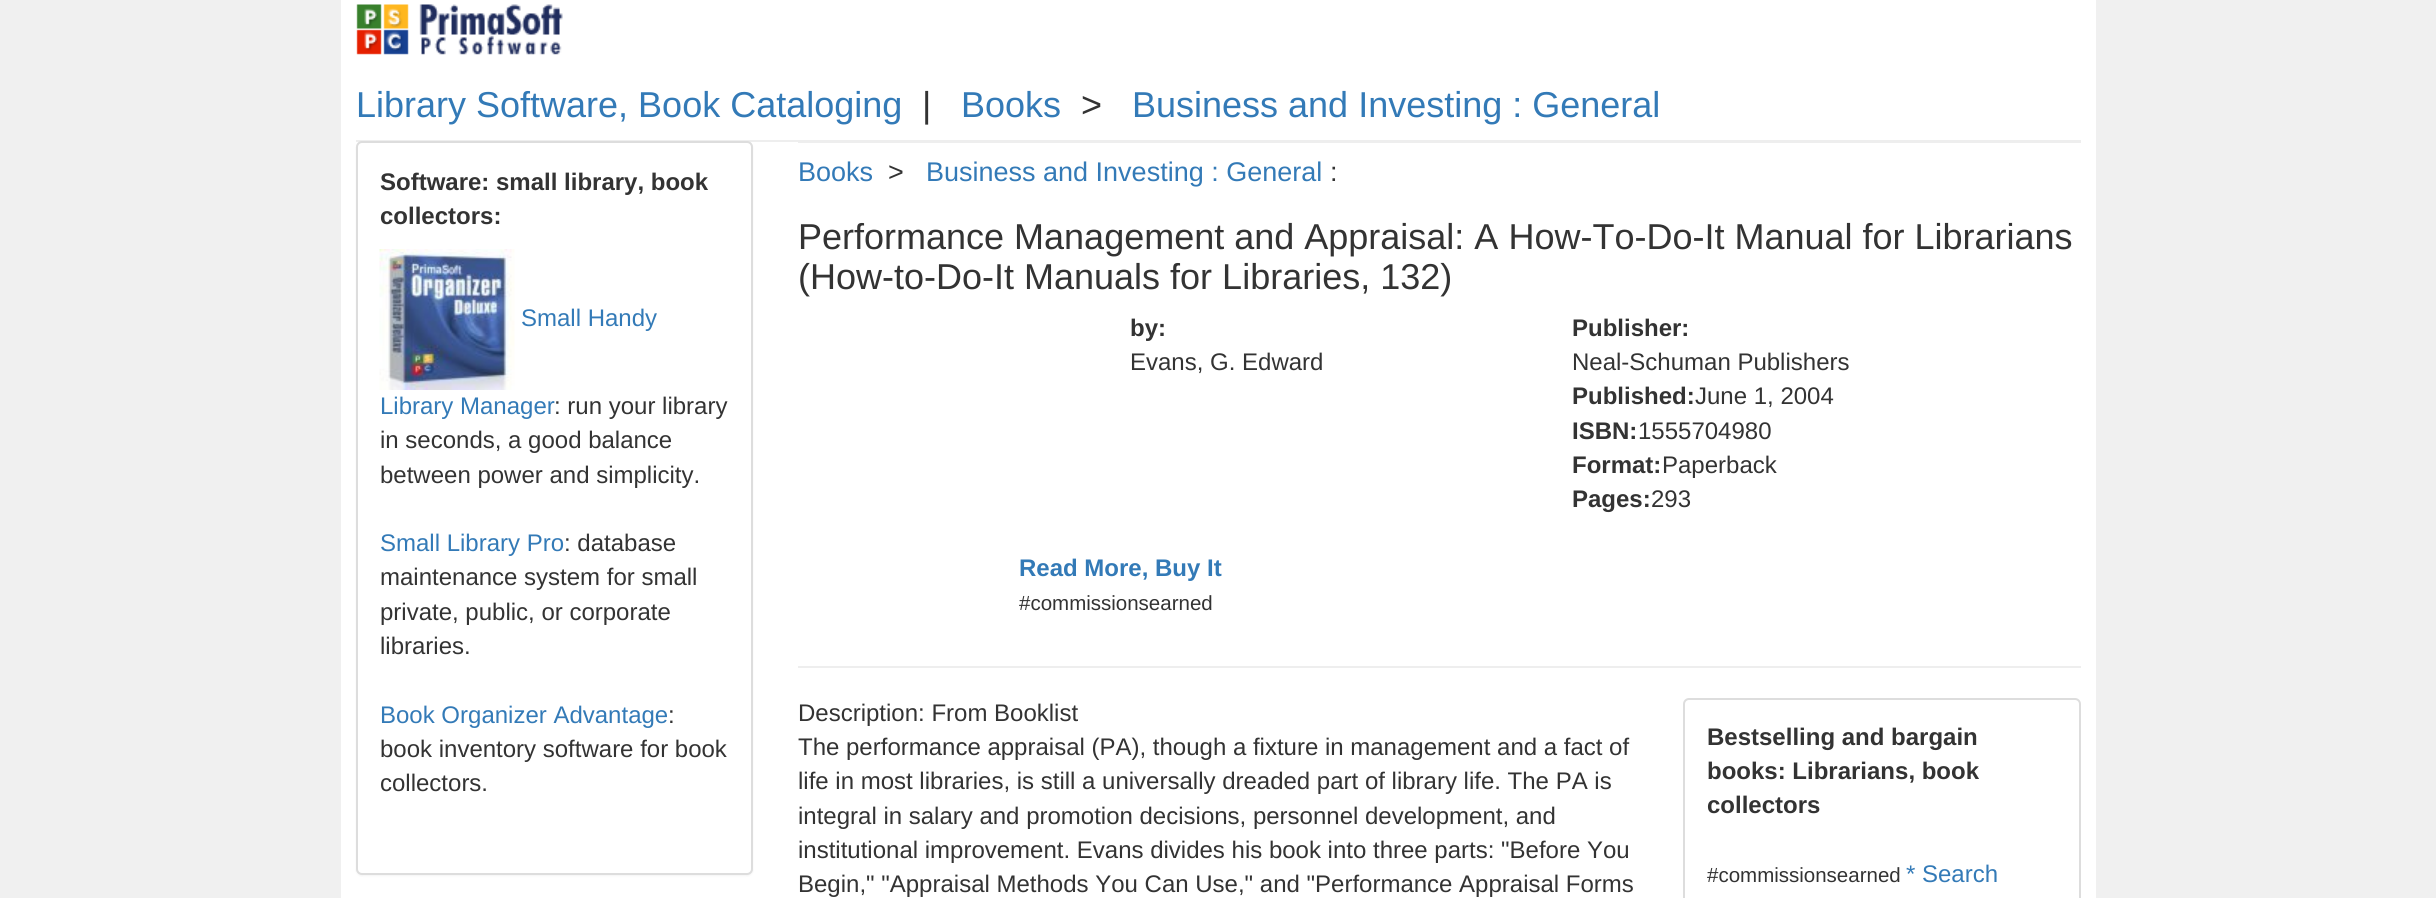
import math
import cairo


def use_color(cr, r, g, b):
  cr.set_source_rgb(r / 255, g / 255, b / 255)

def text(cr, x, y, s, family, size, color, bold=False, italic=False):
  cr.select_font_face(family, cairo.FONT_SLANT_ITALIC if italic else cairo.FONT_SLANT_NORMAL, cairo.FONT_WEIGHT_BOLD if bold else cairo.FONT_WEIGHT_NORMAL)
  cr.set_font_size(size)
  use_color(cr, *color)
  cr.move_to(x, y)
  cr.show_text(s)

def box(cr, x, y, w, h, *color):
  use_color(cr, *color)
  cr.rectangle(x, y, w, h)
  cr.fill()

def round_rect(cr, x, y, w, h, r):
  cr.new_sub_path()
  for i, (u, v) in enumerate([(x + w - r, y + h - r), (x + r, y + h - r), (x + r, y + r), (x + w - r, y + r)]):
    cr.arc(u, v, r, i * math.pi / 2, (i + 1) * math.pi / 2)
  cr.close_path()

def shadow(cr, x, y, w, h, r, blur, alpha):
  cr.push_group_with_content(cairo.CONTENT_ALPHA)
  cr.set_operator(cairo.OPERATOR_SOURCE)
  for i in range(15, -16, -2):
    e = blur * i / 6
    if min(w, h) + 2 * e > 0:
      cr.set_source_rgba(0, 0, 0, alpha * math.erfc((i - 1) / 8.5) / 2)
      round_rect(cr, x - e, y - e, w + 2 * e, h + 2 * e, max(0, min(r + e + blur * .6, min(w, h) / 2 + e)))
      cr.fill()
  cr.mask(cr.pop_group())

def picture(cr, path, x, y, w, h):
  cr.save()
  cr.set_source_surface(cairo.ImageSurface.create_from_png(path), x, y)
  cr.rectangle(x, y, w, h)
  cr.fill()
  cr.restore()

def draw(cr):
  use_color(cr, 240, 240, 240)
  cr.paint()
  box(cr, 341, 0, 1755, 898, 255, 255, 255)
  picture(cr, "img_01.png", 356, 4, 207, 51)
  box(cr, 356, 140, 1725, 2, 238, 238, 238)
  use_color(cr, 0, 0, 0)
  shadow(cr, 356, 143, 397, 733, 6, 1, 0.05)
  use_color(cr, 255, 255, 255)
  round_rect(cr, 357, 142, 395, 732, 5)
  cr.fill_preserve()
  use_color(cr, 221, 221, 221)
  cr.stroke()
  picture(cr, "img_02.png", 379, 249, 136, 141)
  box(cr, 798, 142, 1283, 1, 238, 238, 238)
  box(cr, 798, 666, 1283, 2, 238, 238, 238)
  round_rect(cr, 1684, 699, 396, 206, 5)
  use_color(cr, 221, 221, 221)
  cr.stroke()
  text(cr, 356, 117, "Library Software, Book Cataloging", "Liberation Sans", 36, (51, 122, 183))
  text(cr, 922, 117, "|", "Liberation Sans", 36, (51, 51, 51))
  text(cr, 961, 117, "Books", "Liberation Sans", 36, (51, 122, 183))
  text(cr, 1081, 117, ">", "Liberation Sans", 36, (51, 51, 51))
  text(cr, 1132, 117, "Business and Investing : General", "Liberation Sans", 36, (51, 122, 183))
  text(cr, 380, 190, "Software: small library, book", "Liberation Sans", 24, (51, 51, 51), bold=True)
  text(cr, 380, 224, "collectors:", "Liberation Sans", 24, (51, 51, 51), bold=True)
  text(cr, 521, 326, "Small Handy", "Liberation Sans", 24, (51, 122, 183))
  text(cr, 380, 414, "Library Manager", "Liberation Sans", 24, (51, 122, 183))
  text(cr, 554, 414, ": run your library", "Liberation Sans", 24, (51, 51, 51))
  text(cr, 380, 448, "in seconds, a good balance", "Liberation Sans", 24, (51, 51, 51))
  text(cr, 380, 483, "between power and simplicity.", "Liberation Sans", 24, (51, 51, 51))
  text(cr, 380, 551, "Small Library Pro", "Liberation Sans", 24, (51, 122, 183))
  text(cr, 564, 551, ": database", "Liberation Sans", 24, (51, 51, 51))
  text(cr, 380, 585, "maintenance system for small", "Liberation Sans", 24, (51, 51, 51))
  text(cr, 380, 620, "private, public, or corporate", "Liberation Sans", 24, (51, 51, 51))
  text(cr, 380, 654, "libraries.", "Liberation Sans", 24, (51, 51, 51))
  text(cr, 380, 723, "Book Organizer Advantage", "Liberation Sans", 24, (51, 122, 183))
  text(cr, 668, 723, ":", "Liberation Sans", 24, (51, 51, 51))
  text(cr, 380, 757, "book inventory software for book", "Liberation Sans", 24, (51, 51, 51))
  text(cr, 380, 791, "collectors.", "Liberation Sans", 24, (51, 51, 51))
  text(cr, 798, 181, "Books", "Liberation Sans", 27, (51, 122, 183))
  text(cr, 888, 181, ">", "Liberation Sans", 27, (51, 51, 51))
  text(cr, 926, 181, "Business and Investing : General", "Liberation Sans", 27, (51, 122, 183))
  text(cr, 1330, 181, ":", "Liberation Sans", 27, (51, 51, 51))
  text(cr, 798, 249, "Performance Management and Appraisal: A How-To-Do-It Manual for Librarians", "Liberation Sans", 36, (51, 51, 51))
  text(cr, 798, 289, "(How-to-Do-It Manuals for Libraries, 132)", "Liberation Sans", 36, (51, 51, 51))
  text(cr, 1130, 336, "by:", "Liberation Sans", 24, (51, 51, 51), bold=True)
  text(cr, 1130, 370, "Evans, G. Edward", "Liberation Sans", 24, (51, 51, 51))
  text(cr, 1572, 336, "Publisher:", "Liberation Sans", 24, (51, 51, 51), bold=True)
  text(cr, 1572, 370, "Neal-Schuman Publishers", "Liberation Sans", 24, (51, 51, 51))
  text(cr, 1572, 404, "Published:", "Liberation Sans", 24, (51, 51, 51), bold=True)
  text(cr, 1695, 404, "June 1, 2004", "Liberation Sans", 24, (51, 51, 51))
  text(cr, 1572, 439, "ISBN:", "Liberation Sans", 24, (51, 51, 51), bold=True)
  text(cr, 1638, 439, "1555704980", "Liberation Sans", 24, (51, 51, 51))
  text(cr, 1572, 473, "Format:", "Liberation Sans", 24, (51, 51, 51), bold=True)
  text(cr, 1662, 473, "Paperback", "Liberation Sans", 24, (51, 51, 51))
  text(cr, 1572, 507, "Pages:", "Liberation Sans", 24, (51, 51, 51), bold=True)
  text(cr, 1651, 507, "293", "Liberation Sans", 24, (51, 51, 51))
  text(cr, 1019, 576, "Read More, Buy It", "Liberation Sans", 24, (51, 122, 183), bold=True)
  text(cr, 1019, 610, "#commissionsearned", "Liberation Sans", 20.5, (51, 51, 51))
  text(cr, 798, 721, "Description: From Booklist", "Liberation Sans", 24, (51, 51, 51))
  text(cr, 798, 755, "The performance appraisal (PA), though a fixture in management and a fact of", "Liberation Sans", 24, (51, 51, 51))
  text(cr, 798, 789, "life in most libraries, is still a universally dreaded part of library life. The PA is", "Liberation Sans", 24, (51, 51, 51))
  text(cr, 798, 824, "integral in salary and promotion decisions, personnel development, and", "Liberation Sans", 24, (51, 51, 51))
  text(cr, 798, 858, "institutional improvement. Evans divides his book into three parts: \"Before You", "Liberation Sans", 24, (51, 51, 51))
  text(cr, 798, 892, "Begin,\" \"Appraisal Methods You Can Use,\" and \"Performance Appraisal Forms", "Liberation Sans", 24, (51, 51, 51))
  text(cr, 1707, 745, "Bestselling and bargain", "Liberation Sans", 24, (51, 51, 51), bold=True)
  text(cr, 1707, 779, "books: Librarians, book", "Liberation Sans", 24, (51, 51, 51), bold=True)
  text(cr, 1707, 813, "collectors", "Liberation Sans", 24, (51, 51, 51), bold=True)
  text(cr, 1707, 882, "#commissionsearned", "Liberation Sans", 20.5, (51, 51, 51))
  text(cr, 1906, 882, "* Search", "Liberation Sans", 24, (51, 122, 183))


surface = cairo.ImageSurface(cairo.FORMAT_RGB24, 2436, 898)
cr = cairo.Context(surface)
options = cairo.FontOptions()
options.set_hint_metrics(cairo.HINT_METRICS_OFF)
options.set_hint_style(cairo.HINT_STYLE_NONE)
cr.set_font_options(options)
cr.set_miter_limit(4)
draw(cr)
surface.write_to_png("out.png")
